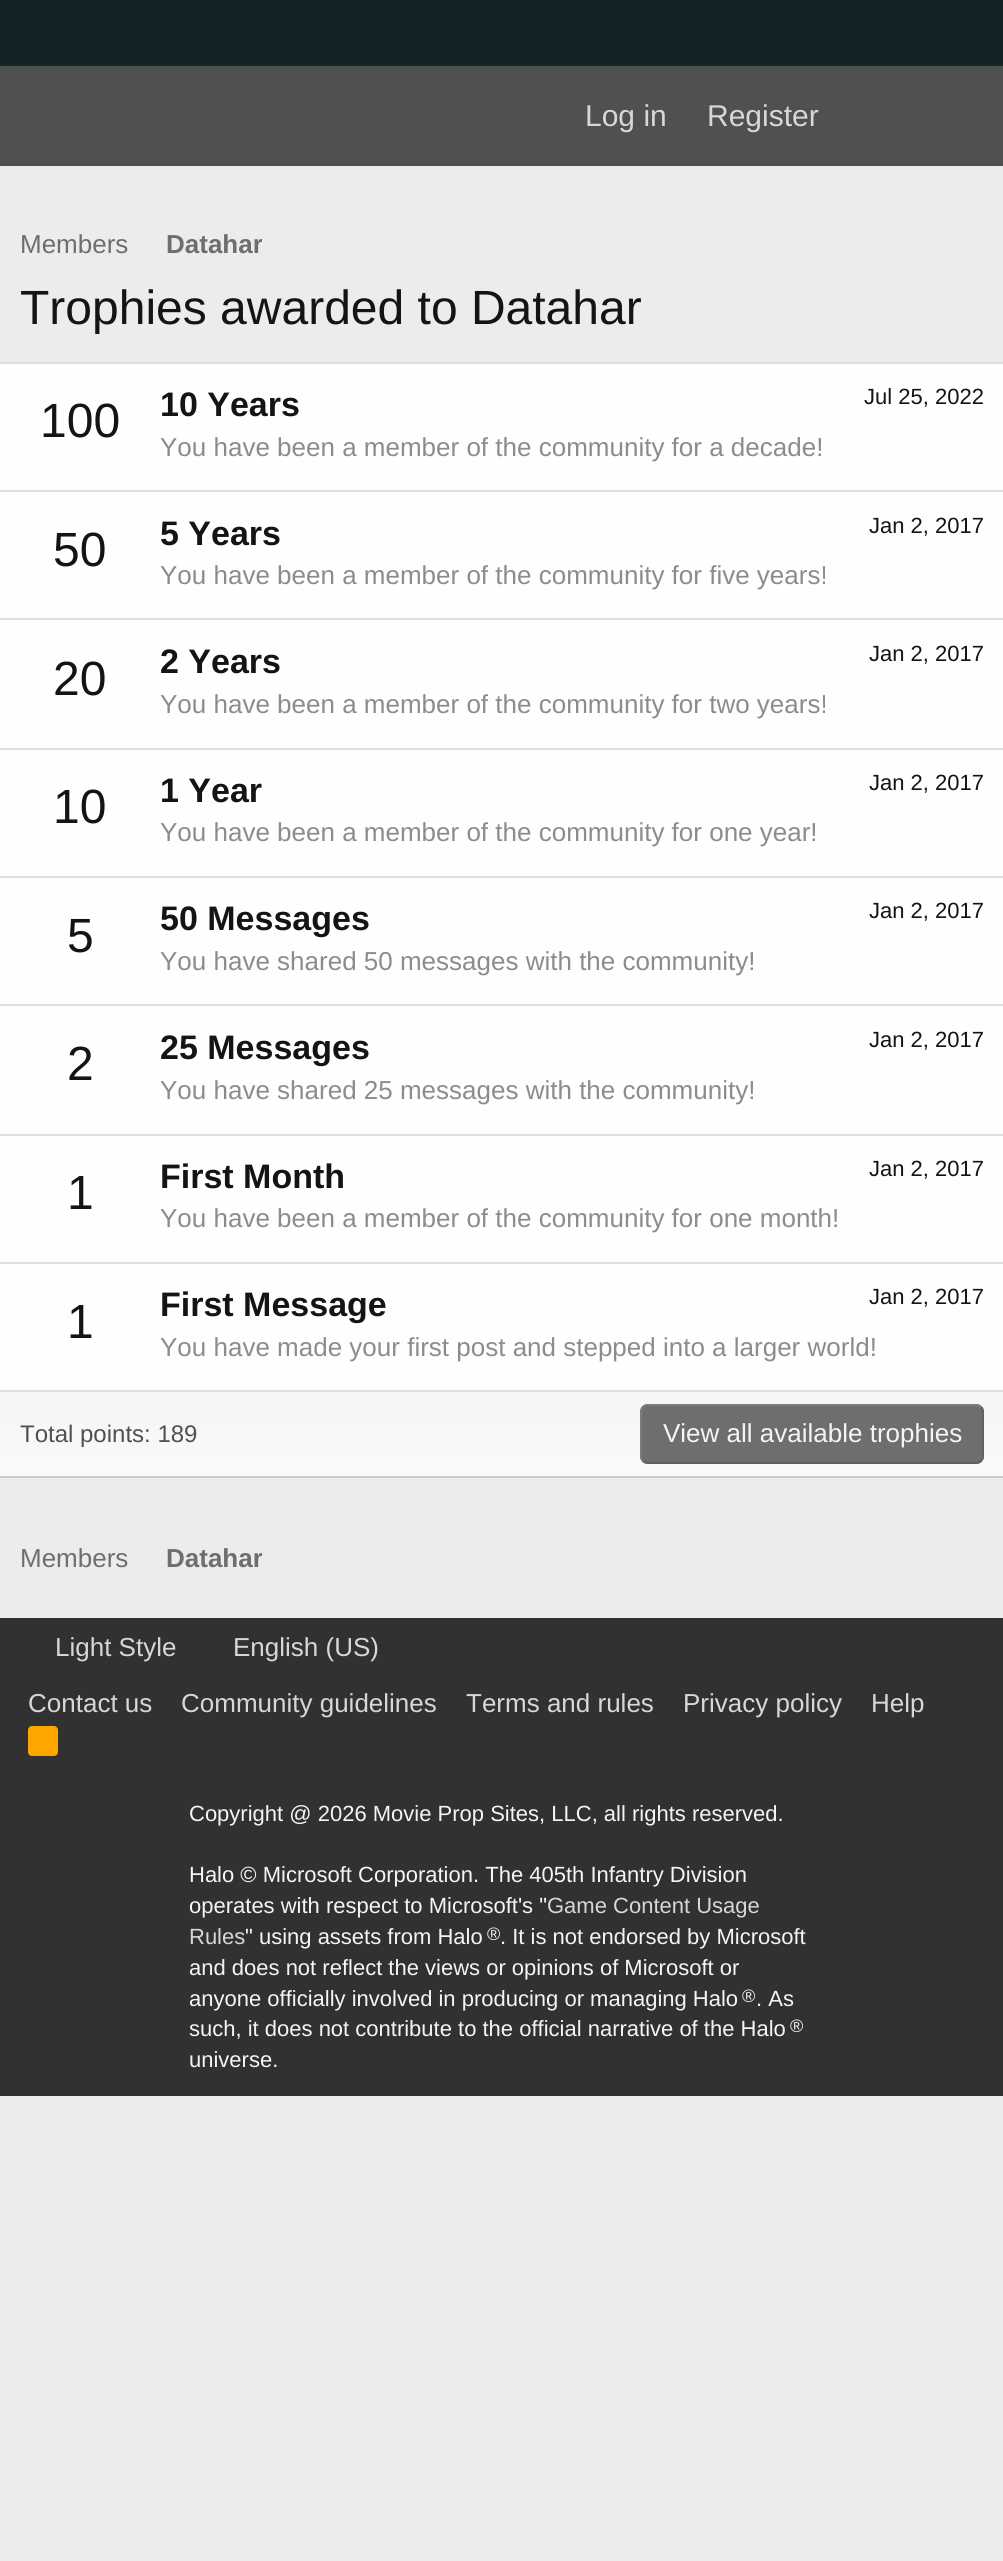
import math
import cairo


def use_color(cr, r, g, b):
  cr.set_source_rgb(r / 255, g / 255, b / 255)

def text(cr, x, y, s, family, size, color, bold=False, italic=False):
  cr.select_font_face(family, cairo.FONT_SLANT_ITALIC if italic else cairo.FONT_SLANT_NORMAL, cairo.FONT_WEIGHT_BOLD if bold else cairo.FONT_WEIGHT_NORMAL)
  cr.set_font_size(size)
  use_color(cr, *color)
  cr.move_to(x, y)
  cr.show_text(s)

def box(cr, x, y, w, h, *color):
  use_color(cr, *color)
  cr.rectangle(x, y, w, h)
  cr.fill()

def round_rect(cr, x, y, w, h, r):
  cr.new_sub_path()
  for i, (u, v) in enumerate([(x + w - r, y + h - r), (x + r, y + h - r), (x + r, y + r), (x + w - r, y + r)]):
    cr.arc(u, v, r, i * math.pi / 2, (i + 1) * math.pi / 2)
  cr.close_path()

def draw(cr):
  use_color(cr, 236, 236, 236)
  cr.paint()
  box(cr, 0, 0, 1003, 66, 19, 36, 41)
  box(cr, 0, 66, 1003, 100, 80, 80, 80)
  box(cr, 0, 364, 1003, 1026, 254, 254, 254)
  box(cr, 0, 362, 1003, 2, 223, 223, 223)
  box(cr, 0, 1476, 1003, 2, 203, 203, 203)
  box(cr, 0, 490, 1003, 2, 223, 223, 223)
  box(cr, 0, 618, 1003, 2, 223, 223, 223)
  box(cr, 0, 748, 1003, 2, 223, 223, 223)
  box(cr, 0, 876, 1003, 2, 223, 223, 223)
  box(cr, 0, 1004, 1003, 2, 223, 223, 223)
  box(cr, 0, 1134, 1003, 2, 223, 223, 223)
  box(cr, 0, 1262, 1003, 2, 223, 223, 223)
  gradient = cairo.LinearGradient(502, 1392, 502, 1476)
  gradient.add_color_stop_rgba(0, 0.961, 0.961, 0.961, 1)
  gradient.add_color_stop_rgba(1, 0.98, 0.98, 0.98, 1)
  cr.set_source(gradient)
  cr.rectangle(0, 1392, 1003, 84)
  cr.fill()
  box(cr, 0, 1390, 1003, 2, 223, 223, 223)
  use_color(cr, 110, 110, 110)
  round_rect(cr, 640, 1404, 344, 60, 8)
  cr.fill()
  cr.new_path()
  cr.move_to(981, 1407)
  cr.curve_to(982.5, 1408.5, 983, 1410, 983, 1412)
  cr.line_to(983, 1456)
  cr.curve_to(983, 1458, 982.5, 1459.5, 981, 1461)
  cr.curve_to(979.5, 1462.5, 978, 1463, 976, 1463)
  cr.line_to(648, 1463)
  cr.curve_to(646, 1463, 644.5, 1462.5, 643, 1461)
  use_color(cr, 97, 97, 97)
  cr.stroke()
  cr.new_path()
  cr.move_to(643, 1461)
  cr.curve_to(641.5, 1459.5, 641, 1458, 641, 1456)
  cr.line_to(641, 1412)
  cr.curve_to(641, 1410, 641.5, 1408.5, 643, 1407)
  cr.curve_to(644.5, 1405.5, 646, 1405, 648, 1405)
  cr.line_to(976, 1405)
  cr.curve_to(978, 1405, 979.5, 1405.5, 981, 1407)
  use_color(cr, 123, 123, 123)
  cr.stroke()
  box(cr, 0, 1618, 1003, 478, 49, 49, 49)
  use_color(cr, 255, 165, 0)
  round_rect(cr, 28, 1726, 30, 30, 4)
  cr.fill()
  text(cr, 585, 126, "Log in", "Liberation Sans", 30, (215, 215, 215))
  text(cr, 707, 126, "Register", "Liberation Sans", 30, (215, 215, 215))
  text(cr, 20, 253, "Members", "Liberation Sans", 26, (110, 110, 110))
  cr.save()
  cr.rectangle(166, 226, 96, 38)
  cr.clip()
  text(cr, 166, 253, "Datahar", "Liberation Sans", 26, (110, 110, 110), bold=True)
  cr.restore()
  text(cr, 20, 324, "Trophies awarded to Datahar", "Liberation Sans", 48, (20, 20, 20))
  text(cr, 40, 437, "100", "Liberation Sans", 48, (20, 20, 20))
  text(cr, 160, 416, "10 Years", "Liberation Sans", 34, (20, 20, 20), bold=True)
  text(cr, 864, 404, "Jul 25, 2022", "Liberation Sans", 22, (20, 20, 20))
  text(cr, 160, 456, "You have been a member of the community for a decade!", "Liberation Sans", 26, (140, 140, 140))
  text(cr, 53, 566, "50", "Liberation Sans", 48, (20, 20, 20))
  text(cr, 160, 545, "5 Years", "Liberation Sans", 34, (20, 20, 20), bold=True)
  text(cr, 869, 533, "Jan 2, 2017", "Liberation Sans", 22, (20, 20, 20))
  text(cr, 160, 584, "You have been a member of the community for five years!", "Liberation Sans", 26, (140, 140, 140))
  text(cr, 53, 695, "20", "Liberation Sans", 48, (20, 20, 20))
  text(cr, 160, 673, "2 Years", "Liberation Sans", 34, (20, 20, 20), bold=True)
  text(cr, 869, 661, "Jan 2, 2017", "Liberation Sans", 22, (20, 20, 20))
  text(cr, 160, 713, "You have been a member of the community for two years!", "Liberation Sans", 26, (140, 140, 140))
  text(cr, 53, 823, "10", "Liberation Sans", 48, (20, 20, 20))
  text(cr, 160, 802, "1 Year", "Liberation Sans", 34, (20, 20, 20), bold=True)
  text(cr, 869, 790, "Jan 2, 2017", "Liberation Sans", 22, (20, 20, 20))
  text(cr, 160, 841, "You have been a member of the community for one year!", "Liberation Sans", 26, (140, 140, 140))
  text(cr, 67, 952, "5", "Liberation Sans", 48, (20, 20, 20))
  text(cr, 160, 930, "50 Messages", "Liberation Sans", 34, (20, 20, 20), bold=True)
  text(cr, 869, 918, "Jan 2, 2017", "Liberation Sans", 22, (20, 20, 20))
  text(cr, 160, 970, "You have shared 50 messages with the community!", "Liberation Sans", 26, (140, 140, 140))
  text(cr, 67, 1080, "2", "Liberation Sans", 48, (20, 20, 20))
  text(cr, 160, 1059, "25 Messages", "Liberation Sans", 34, (20, 20, 20), bold=True)
  text(cr, 869, 1047, "Jan 2, 2017", "Liberation Sans", 22, (20, 20, 20))
  text(cr, 160, 1099, "You have shared 25 messages with the community!", "Liberation Sans", 26, (140, 140, 140))
  text(cr, 67, 1209, "1", "Liberation Sans", 48, (20, 20, 20))
  text(cr, 160, 1188, "First Month", "Liberation Sans", 34, (20, 20, 20), bold=True)
  text(cr, 869, 1176, "Jan 2, 2017", "Liberation Sans", 22, (20, 20, 20))
  text(cr, 160, 1227, "You have been a member of the community for one month!", "Liberation Sans", 26, (140, 140, 140))
  text(cr, 67, 1338, "1", "Liberation Sans", 48, (20, 20, 20))
  text(cr, 160, 1316, "First Message", "Liberation Sans", 34, (20, 20, 20), bold=True)
  text(cr, 869, 1304, "Jan 2, 2017", "Liberation Sans", 22, (20, 20, 20))
  text(cr, 160, 1356, "You have made your first post and stepped into a larger world!", "Liberation Sans", 26, (140, 140, 140))
  text(cr, 20, 1442, "Total points: 189", "Liberation Sans", 24, (80, 80, 80))
  text(cr, 663, 1442, "View all available trophies", "Liberation Sans", 26, (245, 245, 245))
  text(cr, 20, 1567, "Members", "Liberation Sans", 26, (110, 110, 110))
  cr.save()
  cr.rectangle(166, 1538, 96, 40)
  cr.clip()
  text(cr, 166, 1567, "Datahar", "Liberation Sans", 26, (110, 110, 110), bold=True)
  cr.restore()
  text(cr, 55, 1656, "Light Style", "Liberation Sans", 26, (215, 215, 215))
  text(cr, 233, 1656, "English (US)", "Liberation Sans", 26, (215, 215, 215))
  text(cr, 28, 1712, "Contact us", "Liberation Sans", 26, (215, 215, 215))
  text(cr, 181, 1712, "Community guidelines", "Liberation Sans", 26, (215, 215, 215))
  text(cr, 466, 1712, "Terms and rules", "Liberation Sans", 26, (215, 215, 215))
  text(cr, 683, 1712, "Privacy policy", "Liberation Sans", 26, (215, 215, 215))
  text(cr, 871, 1712, "Help", "Liberation Sans", 26, (215, 215, 215))
  text(cr, 189, 1821, "Copyright @ 2026 Movie Prop Sites, LLC, all rights reserved.", "Liberation Sans", 22, (245, 245, 245))
  text(cr, 189, 1882, "Halo © Microsoft Corporation. The 405th Infantry Division", "Liberation Sans", 22, (245, 245, 245))
  text(cr, 189, 1913, "operates with respect to Microsoft's \"", "Liberation Sans", 22, (245, 245, 245))
  text(cr, 547, 1913, "Game Content Usage", "Liberation Sans", 22, (215, 215, 215))
  text(cr, 189, 1944, "Rules", "Liberation Sans", 22, (215, 215, 215))
  text(cr, 245, 1944, "\" using assets from Halo", "Liberation Sans", 22, (245, 245, 245))
  text(cr, 487, 1940, "®", "Liberation Sans", 18, (245, 245, 245))
  text(cr, 500, 1944, ". It is not endorsed by Microsoft", "Liberation Sans", 22, (245, 245, 245))
  text(cr, 189, 1975, "and does not reflect the views or opinions of Microsoft or", "Liberation Sans", 22, (245, 245, 245))
  text(cr, 189, 2006, "anyone officially involved in producing or managing Halo", "Liberation Sans", 22, (245, 245, 245))
  text(cr, 742, 2002, "®", "Liberation Sans", 18, (245, 245, 245))
  text(cr, 756, 2006, ". As", "Liberation Sans", 22, (245, 245, 245))
  text(cr, 189, 2036, "such, it does not contribute to the official narrative of the Halo", "Liberation Sans", 22, (245, 245, 245))
  text(cr, 790, 2032, "®", "Liberation Sans", 18, (245, 245, 245))
  text(cr, 189, 2067, "universe.", "Liberation Sans", 22, (245, 245, 245))


surface = cairo.ImageSurface(cairo.FORMAT_RGB24, 1003, 2561)
cr = cairo.Context(surface)
options = cairo.FontOptions()
options.set_hint_metrics(cairo.HINT_METRICS_OFF)
options.set_hint_style(cairo.HINT_STYLE_NONE)
cr.set_font_options(options)
cr.set_miter_limit(4)
draw(cr)
surface.write_to_png("out.png")
